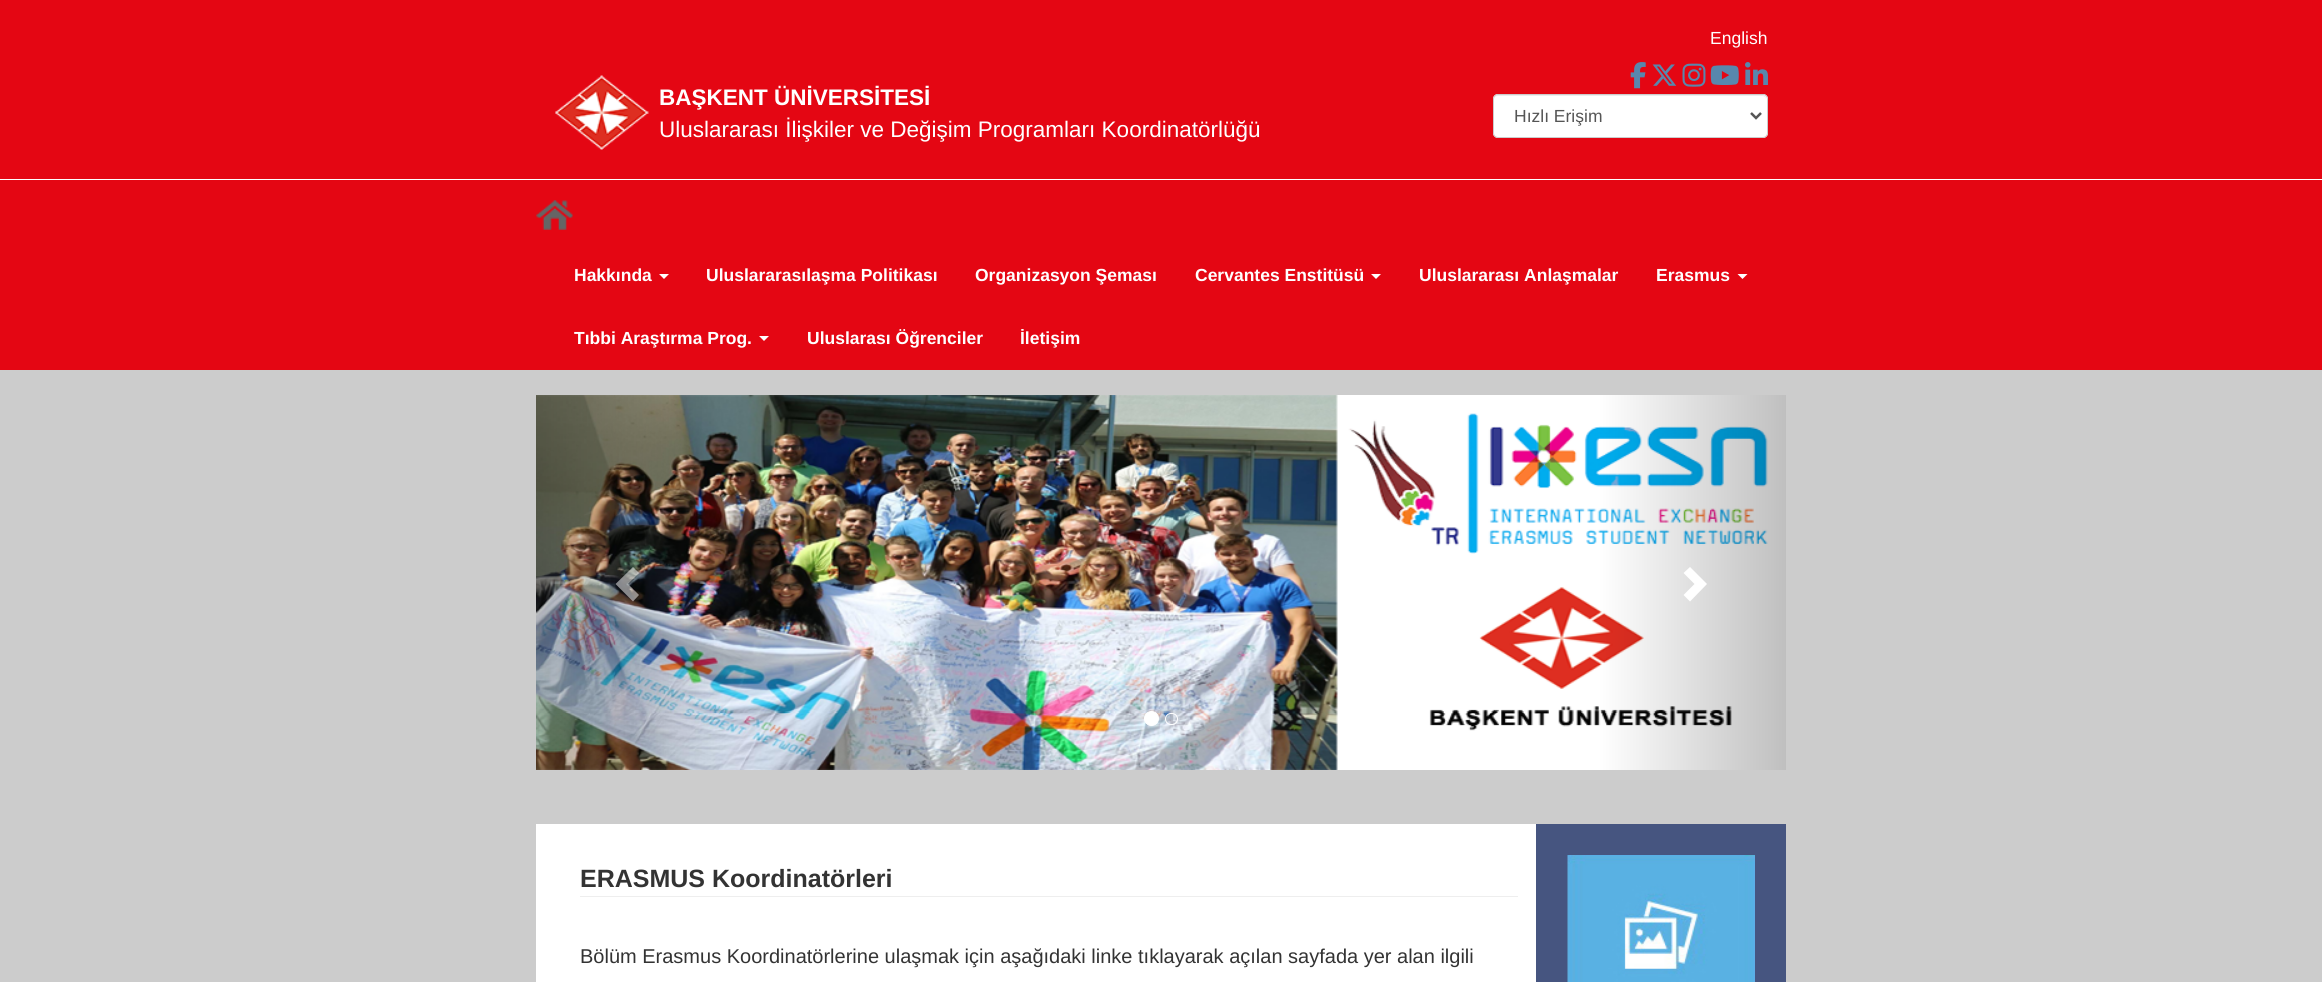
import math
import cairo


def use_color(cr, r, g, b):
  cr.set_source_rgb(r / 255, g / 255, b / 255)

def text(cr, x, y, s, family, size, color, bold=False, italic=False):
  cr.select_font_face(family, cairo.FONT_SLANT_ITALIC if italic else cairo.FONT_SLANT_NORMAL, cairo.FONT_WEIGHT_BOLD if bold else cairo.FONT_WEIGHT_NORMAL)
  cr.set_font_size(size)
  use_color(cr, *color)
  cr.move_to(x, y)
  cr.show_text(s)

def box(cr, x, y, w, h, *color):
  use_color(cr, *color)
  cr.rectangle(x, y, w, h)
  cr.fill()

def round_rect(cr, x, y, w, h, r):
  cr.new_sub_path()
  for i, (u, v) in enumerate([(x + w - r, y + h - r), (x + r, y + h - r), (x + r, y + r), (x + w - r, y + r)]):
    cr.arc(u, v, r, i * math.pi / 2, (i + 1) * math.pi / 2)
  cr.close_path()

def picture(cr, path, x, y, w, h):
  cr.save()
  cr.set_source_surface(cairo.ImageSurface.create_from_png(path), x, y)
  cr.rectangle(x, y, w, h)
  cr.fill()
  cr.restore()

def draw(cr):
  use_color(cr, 204, 204, 204)
  cr.paint()
  box(cr, 0, 0, 2322, 179, 228, 6, 19)
  box(cr, 0, 179, 2322, 1, 255, 255, 255)
  picture(cr, "img_01.png", 555, 75, 94, 75)
  picture(cr, "img_02.png", 1630, 62, 16, 27)
  picture(cr, "img_03.png", 1652, 64, 25, 22)
  picture(cr, "img_04.png", 1682, 63, 24, 24)
  picture(cr, "img_05.png", 1710, 65, 29, 20)
  picture(cr, "img_06.png", 1745, 62, 23, 23)
  round_rect(cr, 1493, 94, 275, 44, 5)
  cr.fill()
  use_color(cr, 236, 236, 236)
  cr.new_path()
  cr.move_to(1498, 96)
  cr.line_to(1762, 96)
  cr.curve_to(1765, 96, 1766, 98, 1766, 100)
  cr.curve_to(1766, 97, 1765, 95, 1762, 95)
  cr.line_to(1498, 95)
  cr.curve_to(1495, 95, 1494, 97, 1494, 100)
  cr.curve_to(1494, 98, 1495, 96, 1498, 96)
  cr.close_path()
  cr.fill()
  round_rect(cr, 1493.5, 94.5, 274, 43, 4.5)
  use_color(cr, 204, 204, 204)
  cr.set_line_width(1)
  cr.stroke()
  cr.new_path()
  cr.move_to(1751, 113)
  cr.line_to(1756, 118)
  cr.line_to(1761, 113)
  use_color(cr, 85, 85, 85)
  cr.set_line_width(2.5)
  cr.stroke()
  box(cr, 0, 180, 2322, 190, 228, 6, 19)
  picture(cr, "img_07.png", 536, 200, 37, 30)
  use_color(cr, 255, 255, 255)
  cr.new_path()
  cr.move_to(659, 274)
  cr.line_to(669, 274)
  cr.line_to(664, 279)
  cr.close_path()
  cr.fill()
  cr.new_path()
  cr.move_to(1371, 274)
  cr.line_to(1381, 274)
  cr.line_to(1376, 279)
  cr.close_path()
  cr.fill()
  cr.new_path()
  cr.move_to(1737.5, 274)
  cr.line_to(1747.5, 274)
  cr.line_to(1742.5, 279)
  cr.close_path()
  cr.fill()
  cr.new_path()
  cr.move_to(759, 336)
  cr.line_to(769, 336)
  cr.line_to(764, 341)
  cr.close_path()
  cr.fill()
  picture(cr, "img_08.png", 536, 395, 1250, 375)
  cr.set_source_rgba(1, 1, 1, 0.5)
  cr.new_path()
  cr.move_to(639, 573)
  cr.line_to(628, 584)
  cr.line_to(639, 595)
  cr.line_to(633, 601.5)
  cr.line_to(615.5, 584)
  cr.line_to(633, 567)
  cr.close_path()
  cr.fill()
  use_color(cr, 255, 255, 255)
  cr.new_path()
  cr.move_to(1707, 584)
  cr.line_to(1690, 601.5)
  cr.line_to(1683.5, 595)
  cr.line_to(1694.5, 584)
  cr.line_to(1683.5, 573)
  cr.line_to(1690, 567)
  cr.close_path()
  cr.fill()
  cr.arc(1151.5, 718.5, 7, 0, 2 * math.pi)
  cr.fill_preserve()
  cr.set_line_width(1)
  cr.stroke()
  round_rect(cr, 1165.5, 713.5, 12, 11, 5.5)
  cr.stroke()
  box(cr, 536, 824, 1000, 158, 255, 255, 255)
  box(cr, 580, 896, 938, 1, 238, 238, 238)
  box(cr, 1536, 824, 250, 158, 70, 85, 128)
  picture(cr, "img_09.png", 1567, 855, 188, 127)
  text(cr, 1710, 44, "English", "Liberation Sans", 17.5, (255, 255, 255))
  text(cr, 659, 105, "BAŞKENT ÜNİVERSİTESİ", "Liberation Sans", 22.5, (255, 255, 255), bold=True)
  text(cr, 659, 137, "Uluslararası İlişkiler ve Değişim Programları Koordinatörlüğü", "Liberation Sans", 22.5, (255, 255, 255))
  text(cr, 1514, 122, "Hızlı Erişim", "Liberation Sans", 17.5, (85, 85, 85))
  text(cr, 574, 281, "Hakkında", "Liberation Sans", 17.5, (255, 255, 255), bold=True)
  text(cr, 706, 281, "Uluslararasılaşma Politikası", "Liberation Sans", 17.5, (255, 255, 255), bold=True)
  text(cr, 975, 281, "Organizasyon Şeması", "Liberation Sans", 17.5, (255, 255, 255), bold=True)
  text(cr, 1195, 281, "Cervantes Enstitüsü", "Liberation Sans", 17.5, (255, 255, 255), bold=True)
  text(cr, 1419, 281, "Uluslararası Anlaşmalar", "Liberation Sans", 17.5, (255, 255, 255), bold=True)
  text(cr, 1656, 281, "Erasmus", "Liberation Sans", 17.5, (255, 255, 255), bold=True)
  text(cr, 574, 344, "Tıbbi Araştırma Prog.", "Liberation Sans", 17.5, (255, 255, 255), bold=True)
  text(cr, 807, 344, "Uluslarası Öğrenciler", "Liberation Sans", 17.5, (255, 255, 255), bold=True)
  text(cr, 1020, 344, "İletişim", "Liberation Sans", 17.5, (255, 255, 255), bold=True)
  text(cr, 580, 887, "ERASMUS Koordinatörleri", "Liberation Sans", 25, (51, 51, 51), bold=True)
  text(cr, 580, 963, "Bölüm Erasmus Koordinatörlerine ulaşmak için aşağıdaki linke tıklayarak açılan sayfada yer alan ilgili", "Liberation Sans", 20, (51, 51, 51))


surface = cairo.ImageSurface(cairo.FORMAT_RGB24, 2322, 982)
cr = cairo.Context(surface)
options = cairo.FontOptions()
options.set_hint_metrics(cairo.HINT_METRICS_OFF)
options.set_hint_style(cairo.HINT_STYLE_NONE)
cr.set_font_options(options)
cr.set_miter_limit(4)
draw(cr)
surface.write_to_png("out.png")
